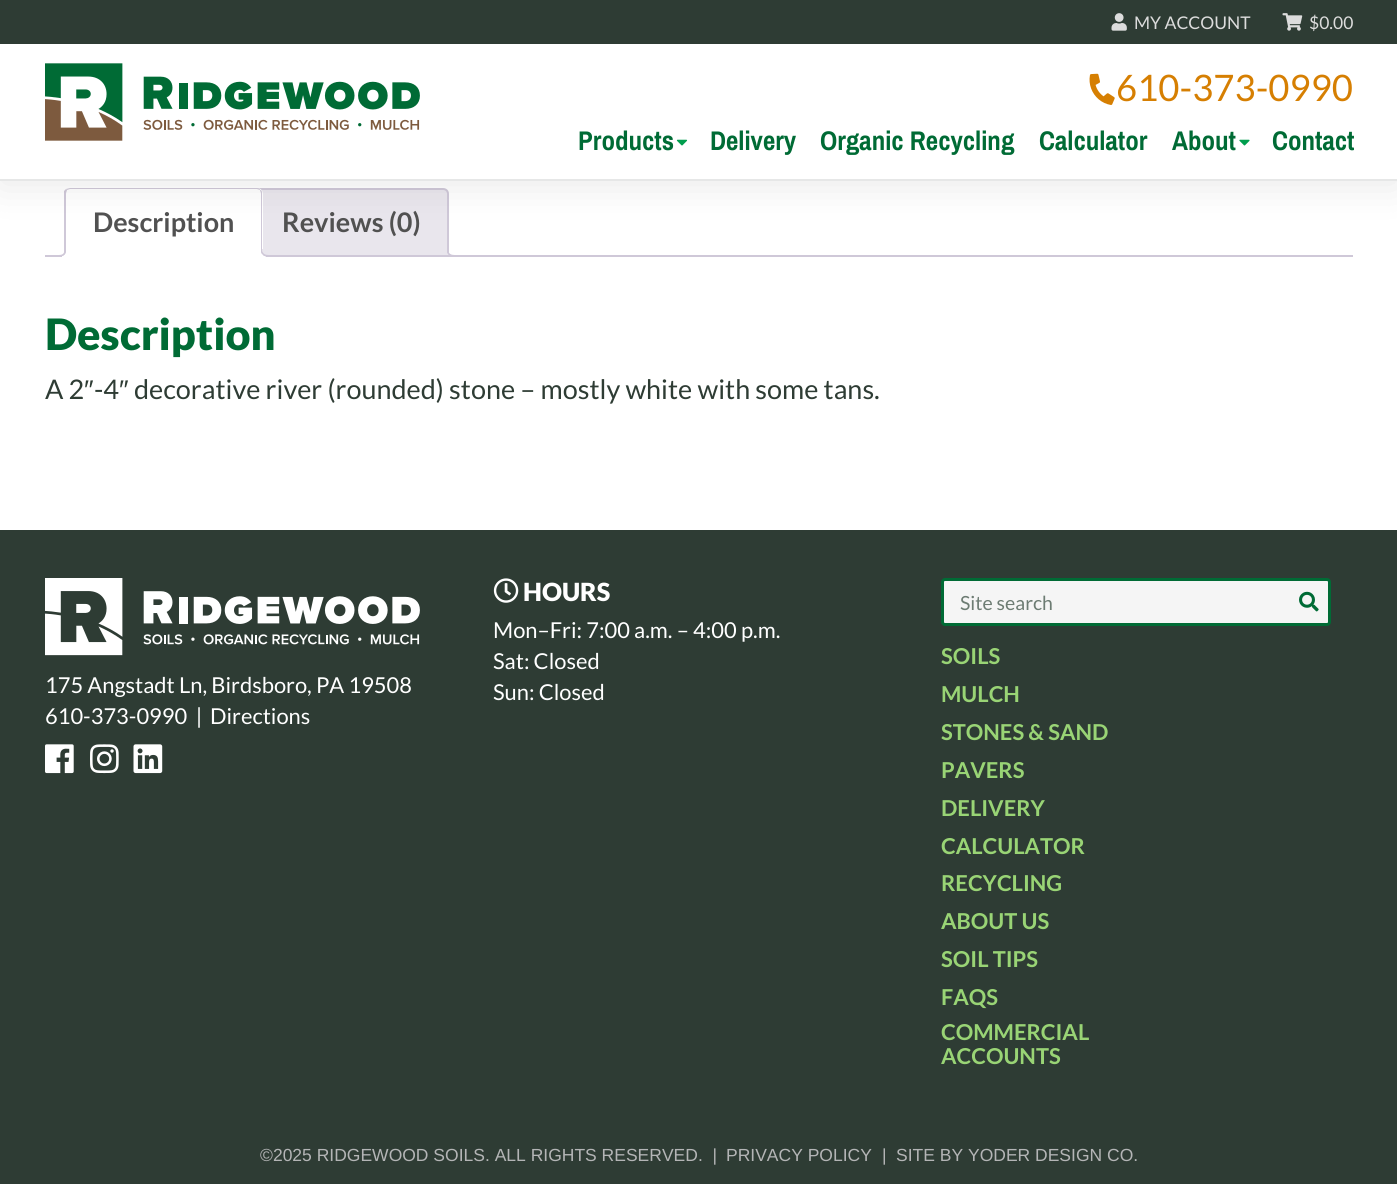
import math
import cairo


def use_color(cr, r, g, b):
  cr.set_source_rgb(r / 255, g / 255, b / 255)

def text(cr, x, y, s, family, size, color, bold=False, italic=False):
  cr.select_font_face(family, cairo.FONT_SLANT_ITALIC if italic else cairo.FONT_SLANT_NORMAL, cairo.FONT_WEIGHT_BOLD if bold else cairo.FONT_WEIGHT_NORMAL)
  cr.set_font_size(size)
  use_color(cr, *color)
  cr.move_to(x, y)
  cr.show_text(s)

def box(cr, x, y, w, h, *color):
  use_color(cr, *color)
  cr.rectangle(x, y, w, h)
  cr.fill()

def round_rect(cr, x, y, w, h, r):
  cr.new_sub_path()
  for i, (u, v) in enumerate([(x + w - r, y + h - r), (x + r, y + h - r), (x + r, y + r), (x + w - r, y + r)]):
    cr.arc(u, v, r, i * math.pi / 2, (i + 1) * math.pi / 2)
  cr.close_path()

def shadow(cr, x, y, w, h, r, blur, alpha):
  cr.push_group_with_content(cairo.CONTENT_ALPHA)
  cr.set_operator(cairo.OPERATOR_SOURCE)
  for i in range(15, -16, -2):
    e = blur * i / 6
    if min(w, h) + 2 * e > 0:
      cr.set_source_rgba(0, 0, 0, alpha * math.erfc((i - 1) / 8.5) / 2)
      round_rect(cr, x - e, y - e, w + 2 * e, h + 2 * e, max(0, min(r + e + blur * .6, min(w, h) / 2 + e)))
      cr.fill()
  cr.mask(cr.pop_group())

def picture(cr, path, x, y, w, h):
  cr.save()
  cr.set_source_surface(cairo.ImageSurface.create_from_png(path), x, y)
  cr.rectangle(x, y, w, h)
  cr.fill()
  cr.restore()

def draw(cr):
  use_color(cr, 255, 255, 255)
  cr.paint()
  use_color(cr, 233, 230, 237)
  cr.new_path()
  cr.move_to(260, 189)
  cr.line_to(443, 189)
  cr.curve_to(446, 189, 448, 191, 448, 194)
  cr.line_to(448, 256)
  cr.line_to(255, 256)
  cr.line_to(255, 194)
  cr.curve_to(255, 191, 257, 189, 260, 189)
  cr.close_path()
  cr.fill_preserve()
  use_color(cr, 207, 200, 216)
  cr.stroke()
  cr.save()
  cr.rectangle(45, 188, 1308, 69)
  cr.clip()
  use_color(cr, 233, 230, 237)
  cr.new_path()
  cr.move_to(444, 252)
  cr.curve_to(444, 258, 446, 260, 452, 260)
  cr.line_to(452, 256.5)
  cr.curve_to(449.5, 256, 448, 254.5, 447, 252)
  cr.close_path()
  cr.fill()
  cr.restore()
  cr.set_fill_rule(cairo.FILL_RULE_EVEN_ODD)
  cr.new_path()
  cr.move_to(447, 249)
  cr.line_to(454.5, 249)
  cr.line_to(454.5, 256.5)
  cr.curve_to(450.5, 256.5, 447, 255, 447, 250.5)
  cr.close_path()
  cr.move_to(448.5, 249)
  cr.line_to(454.5, 249)
  cr.line_to(454.5, 255)
  cr.curve_to(451.5, 255, 448.5, 254, 448.5, 250.5)
  cr.close_path()
  cr.fill()
  box(cr, 45, 255, 1308, 2, 207, 200, 216)
  use_color(cr, 255, 255, 255)
  cr.new_path()
  cr.move_to(71, 188)
  cr.line_to(257, 188)
  cr.curve_to(260.5, 188, 263, 190.5, 263, 194)
  cr.line_to(263, 257)
  cr.line_to(65, 257)
  cr.line_to(65, 194)
  cr.curve_to(65, 190.5, 67.5, 188, 71, 188)
  cr.close_path()
  cr.fill()
  use_color(cr, 207, 200, 216)
  cr.set_fill_rule(cairo.FILL_RULE_WINDING)
  cr.new_path()
  cr.move_to(70, 188)
  cr.line_to(66, 189)
  cr.line_to(67, 190)
  cr.line_to(70, 189)
  cr.line_to(257, 189)
  cr.line_to(260, 190)
  cr.curve_to(260, 188, 258, 188, 256, 188)
  cr.close_path()
  cr.fill()
  cr.new_path()
  cr.move_to(262, 256)
  cr.line_to(262, 194)
  cr.curve_to(262, 192, 262, 190, 260, 190)
  cr.curve_to(260, 191, 261, 192, 261, 194)
  cr.line_to(261, 255)
  cr.close_path()
  cr.fill()
  use_color(cr, 255, 255, 255)
  cr.new_path()
  cr.move_to(262, 256)
  cr.line_to(261, 255)
  cr.line_to(66, 255)
  cr.line_to(65, 256)
  cr.close_path()
  cr.fill()
  use_color(cr, 207, 200, 216)
  cr.new_path()
  cr.move_to(64, 191)
  cr.line_to(66, 189)
  cr.line_to(67, 190)
  cr.curve_to(67, 191, 66, 192, 66, 194)
  cr.line_to(66, 255)
  cr.line_to(64, 256)
  cr.close_path()
  cr.fill()
  use_color(cr, 0, 0, 0)
  shadow(cr, 0, 3, 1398, 180, 0, 20, 0.1)
  box(cr, 0, 44, 1397, 135, 255, 255, 255)
  box(cr, 0, 179, 1397, 2, 230, 231, 231)
  box(cr, 0, 0, 1397, 44, 46, 60, 52)
  picture(cr, "img_01.png", 1111, 13, 16, 18)
  picture(cr, "img_02.png", 1282, 13, 21, 18)
  picture(cr, "img_03.png", 45, 63, 375, 78)
  picture(cr, "img_04.png", 1089, 73, 26, 32)
  picture(cr, "img_05.png", 676, 139, 12, 7)
  picture(cr, "img_06.png", 1239, 139, 11, 7)
  cr.save()
  cr.rectangle(45, 188, 1308, 69)
  cr.clip()
  use_color(cr, 255, 255, 255)
  cr.new_path()
  cr.move_to(62, 256)
  cr.line_to(62, 260)
  cr.curve_to(67.5, 260, 69, 257, 69, 252)
  cr.line_to(66, 252)
  cr.curve_to(65.5, 254, 64, 255.5, 62, 256)
  cr.close_path()
  cr.fill()
  cr.restore()
  use_color(cr, 207, 200, 216)
  cr.set_fill_rule(cairo.FILL_RULE_EVEN_ODD)
  cr.new_path()
  cr.move_to(58.5, 249)
  cr.line_to(66, 249)
  cr.curve_to(66, 254.5, 64, 256.5, 58.5, 256.5)
  cr.close_path()
  cr.move_to(58.5, 249)
  cr.line_to(64.5, 249)
  cr.curve_to(64.5, 253.5, 63, 255, 58.5, 255)
  cr.close_path()
  cr.fill()
  cr.save()
  cr.set_fill_rule(cairo.FILL_RULE_WINDING)
  cr.rectangle(45, 188, 1308, 69)
  cr.clip()
  use_color(cr, 255, 255, 255)
  cr.new_path()
  cr.move_to(258, 252)
  cr.curve_to(258, 258, 260, 260, 266, 260)
  cr.line_to(266, 256.5)
  cr.curve_to(263.5, 256, 262, 254.5, 261, 252)
  cr.close_path()
  cr.fill()
  cr.restore()
  cr.new_path()
  cr.move_to(261, 249)
  cr.line_to(268.5, 249)
  cr.line_to(268.5, 256.5)
  cr.curve_to(264.5, 256.5, 261, 255, 261, 250.5)
  cr.close_path()
  cr.move_to(262.5, 249)
  cr.line_to(268.5, 249)
  cr.line_to(268.5, 255)
  cr.curve_to(265.5, 255, 262.5, 254, 262.5, 250.5)
  cr.close_path()
  cr.fill()
  box(cr, 0, 530, 1397, 654, 46, 60, 52)
  picture(cr, "img_07.png", 45, 578, 375, 78)
  picture(cr, "img_08.png", 45, 744, 29, 30)
  picture(cr, "img_09.png", 90, 744, 29, 30)
  picture(cr, "img_10.png", 133, 744, 30, 30)
  picture(cr, "img_11.png", 493, 578, 26, 25)
  use_color(cr, 245, 245, 245)
  round_rect(cr, 942.5, 579.5, 387, 45, 2.5)
  cr.fill_preserve()
  use_color(cr, 0, 107, 53)
  cr.set_line_width(3)
  cr.stroke()
  picture(cr, "img_12.png", 1299, 591, 20, 21)
  text(cr, 1134, 29, "MY ACCOUNT", "Lato", 17.5, (220, 220, 220))
  text(cr, 1309, 29, "$0.00", "Lato", 17.5, (220, 220, 220))
  text(cr, 1116, 101, "610-373-0990", "Lato", 36.5, (214, 127, 2))
  text(cr, 578, 150, "Products", "Archivo Narrow", 27, (0, 107, 53), bold=True)
  text(cr, 710, 150, "Delivery", "Archivo Narrow", 27, (0, 107, 53), bold=True)
  text(cr, 820, 150, "Organic Recycling", "Archivo Narrow", 27, (0, 107, 53), bold=True)
  text(cr, 1039, 150, "Calculator", "Archivo Narrow", 27, (0, 107, 53), bold=True)
  text(cr, 1172, 150, "About", "Archivo Narrow", 27, (0, 107, 53), bold=True)
  text(cr, 1272, 150, "Contact", "Archivo Narrow", 27, (0, 107, 53), bold=True)
  text(cr, 93, 232, "Description", "Lato", 27, (81, 81, 81), bold=True)
  text(cr, 282, 232, "Reviews (0)", "Lato", 27, (81, 81, 81), bold=True)
  text(cr, 45, 350, "Description", "Lato Black", 43.25, (0, 107, 53))
  text(cr, 45, 399, "A 2", "Lato", 27, (46, 60, 52))
  text(cr, 84, 399, "″", "Liberation Sans", 27, (46, 60, 52))
  text(cr, 94, 399, "-4", "Lato", 27, (46, 60, 52))
  text(cr, 119, 399, "″", "Liberation Sans", 27, (46, 60, 52))
  text(cr, 134, 399, "decorative river (rounded) stone – mostly white with some tans.", "Lato", 27, (46, 60, 52))
  text(cr, 45, 693, "175 Angstadt Ln, Birdsboro, PA 19508", "Lato", 21.9, (255, 255, 255))
  text(cr, 45, 724, "610-373-0990  |", "Lato", 21.9, (255, 255, 255))
  text(cr, 210, 724, "Directions", "Lato", 21.9, (255, 255, 255))
  text(cr, 523, 601, "HOURS", "Lato Black", 25, (255, 255, 255))
  text(cr, 493, 638, "Mon–Fri: 7:00 a.m. – 4:00 p.m.", "Lato", 21.9, (255, 255, 255))
  text(cr, 493, 669, "Sat: Closed", "Lato", 21.9, (255, 255, 255))
  text(cr, 493, 700, "Sun: Closed", "Lato", 21.9, (255, 255, 255))
  text(cr, 960, 610, "Site search", "Lato", 19.5, (109, 124, 115))
  text(cr, 941, 664, "SOILS", "Lato", 21.9, (153, 212, 117), bold=True)
  text(cr, 941, 702, "MULCH", "Lato", 21.9, (153, 212, 117), bold=True)
  text(cr, 941, 740, "STONES & SAND", "Lato", 21.9, (153, 212, 117), bold=True)
  text(cr, 941, 778, "PAVERS", "Lato", 21.9, (153, 212, 117), bold=True)
  text(cr, 941, 816, "DELIVERY", "Lato", 21.9, (153, 212, 117), bold=True)
  text(cr, 941, 854, "CALCULATOR", "Lato", 21.9, (153, 212, 117), bold=True)
  text(cr, 941, 891, "RECYCLING", "Lato", 21.9, (153, 212, 117), bold=True)
  text(cr, 941, 929, "ABOUT US", "Lato", 21.9, (153, 212, 117), bold=True)
  text(cr, 941, 967, "SOIL TIPS", "Lato", 21.9, (153, 212, 117), bold=True)
  text(cr, 941, 1005, "FAQS", "Lato", 21.9, (153, 212, 117), bold=True)
  text(cr, 941, 1040, "COMMERCIAL", "Lato", 21.9, (153, 212, 117), bold=True)
  text(cr, 941, 1064, "ACCOUNTS", "Lato", 21.9, (153, 212, 117), bold=True)
  text(cr, 260, 1161, "©2025 RIDGEWOOD SOILS. ALL RIGHTS RESERVED.  |", "Liberation Sans", 17.5, (180, 181, 182))
  text(cr, 726, 1161, "PRIVACY POLICY", "Liberation Sans", 17.5, (180, 181, 182))
  text(cr, 882, 1161, "|", "Liberation Sans", 17.5, (180, 181, 182))
  text(cr, 896, 1161, "SITE BY YODER DESIGN CO.", "Liberation Sans", 17.5, (180, 181, 182))


surface = cairo.ImageSurface(cairo.FORMAT_RGB24, 1397, 1184)
cr = cairo.Context(surface)
options = cairo.FontOptions()
options.set_hint_metrics(cairo.HINT_METRICS_OFF)
options.set_hint_style(cairo.HINT_STYLE_NONE)
cr.set_font_options(options)
cr.set_miter_limit(4)
draw(cr)
surface.write_to_png("out.png")
